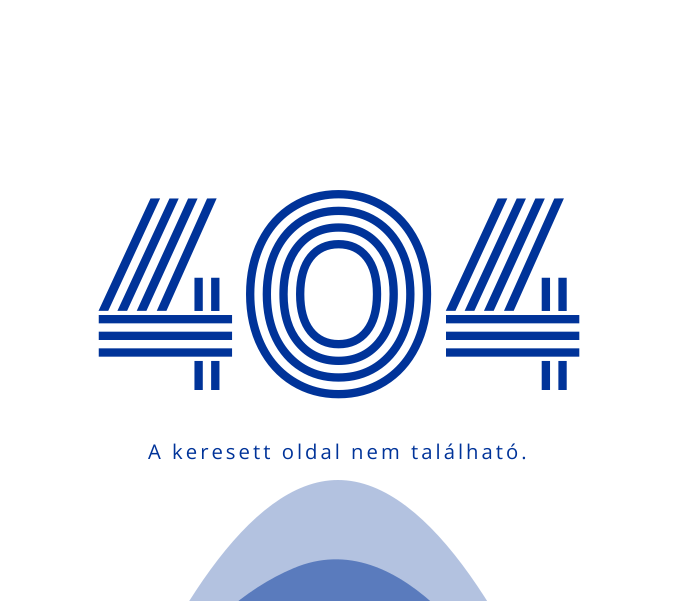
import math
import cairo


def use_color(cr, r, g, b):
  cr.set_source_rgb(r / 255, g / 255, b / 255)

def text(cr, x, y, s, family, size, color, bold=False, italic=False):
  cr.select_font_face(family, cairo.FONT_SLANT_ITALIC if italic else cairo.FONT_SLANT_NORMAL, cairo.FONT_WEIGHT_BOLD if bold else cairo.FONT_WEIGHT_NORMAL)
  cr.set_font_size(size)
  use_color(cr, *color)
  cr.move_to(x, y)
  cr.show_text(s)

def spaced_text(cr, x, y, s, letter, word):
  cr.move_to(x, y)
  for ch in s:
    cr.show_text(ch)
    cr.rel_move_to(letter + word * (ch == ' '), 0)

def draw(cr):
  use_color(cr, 255, 255, 255)
  cr.paint()
  use_color(cr, 179, 194, 224)
  cr.new_path()
  cr.move_to(0, 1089)
  cr.line_to(0, 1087)
  cr.curve_to(10, 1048, 158, 480, 338, 480)
  cr.curve_to(525, 480, 677, 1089, 677, 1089)
  cr.close_path()
  cr.fill()
  use_color(cr, 90, 123, 189)
  cr.new_path()
  cr.move_to(0, 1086)
  cr.curve_to(7, 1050, 93, 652, 294, 568)
  cr.curve_to(504, 480, 677, 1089, 677, 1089)
  cr.line_to(0, 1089)
  cr.close_path()
  cr.fill()
  text(cr, 91, 390, "404", "Monoton", 237, (0, 51, 153))
  cr.select_font_face("Open Sans")
  cr.set_font_size(20.3)
  spaced_text(cr, 148, 459, "A keresett oldal nem található.", 3, 0)


surface = cairo.ImageSurface(cairo.FORMAT_RGB24, 677, 601)
cr = cairo.Context(surface)
options = cairo.FontOptions()
options.set_hint_metrics(cairo.HINT_METRICS_OFF)
options.set_hint_style(cairo.HINT_STYLE_NONE)
cr.set_font_options(options)
cr.set_miter_limit(4)
draw(cr)
surface.write_to_png("out.png")
